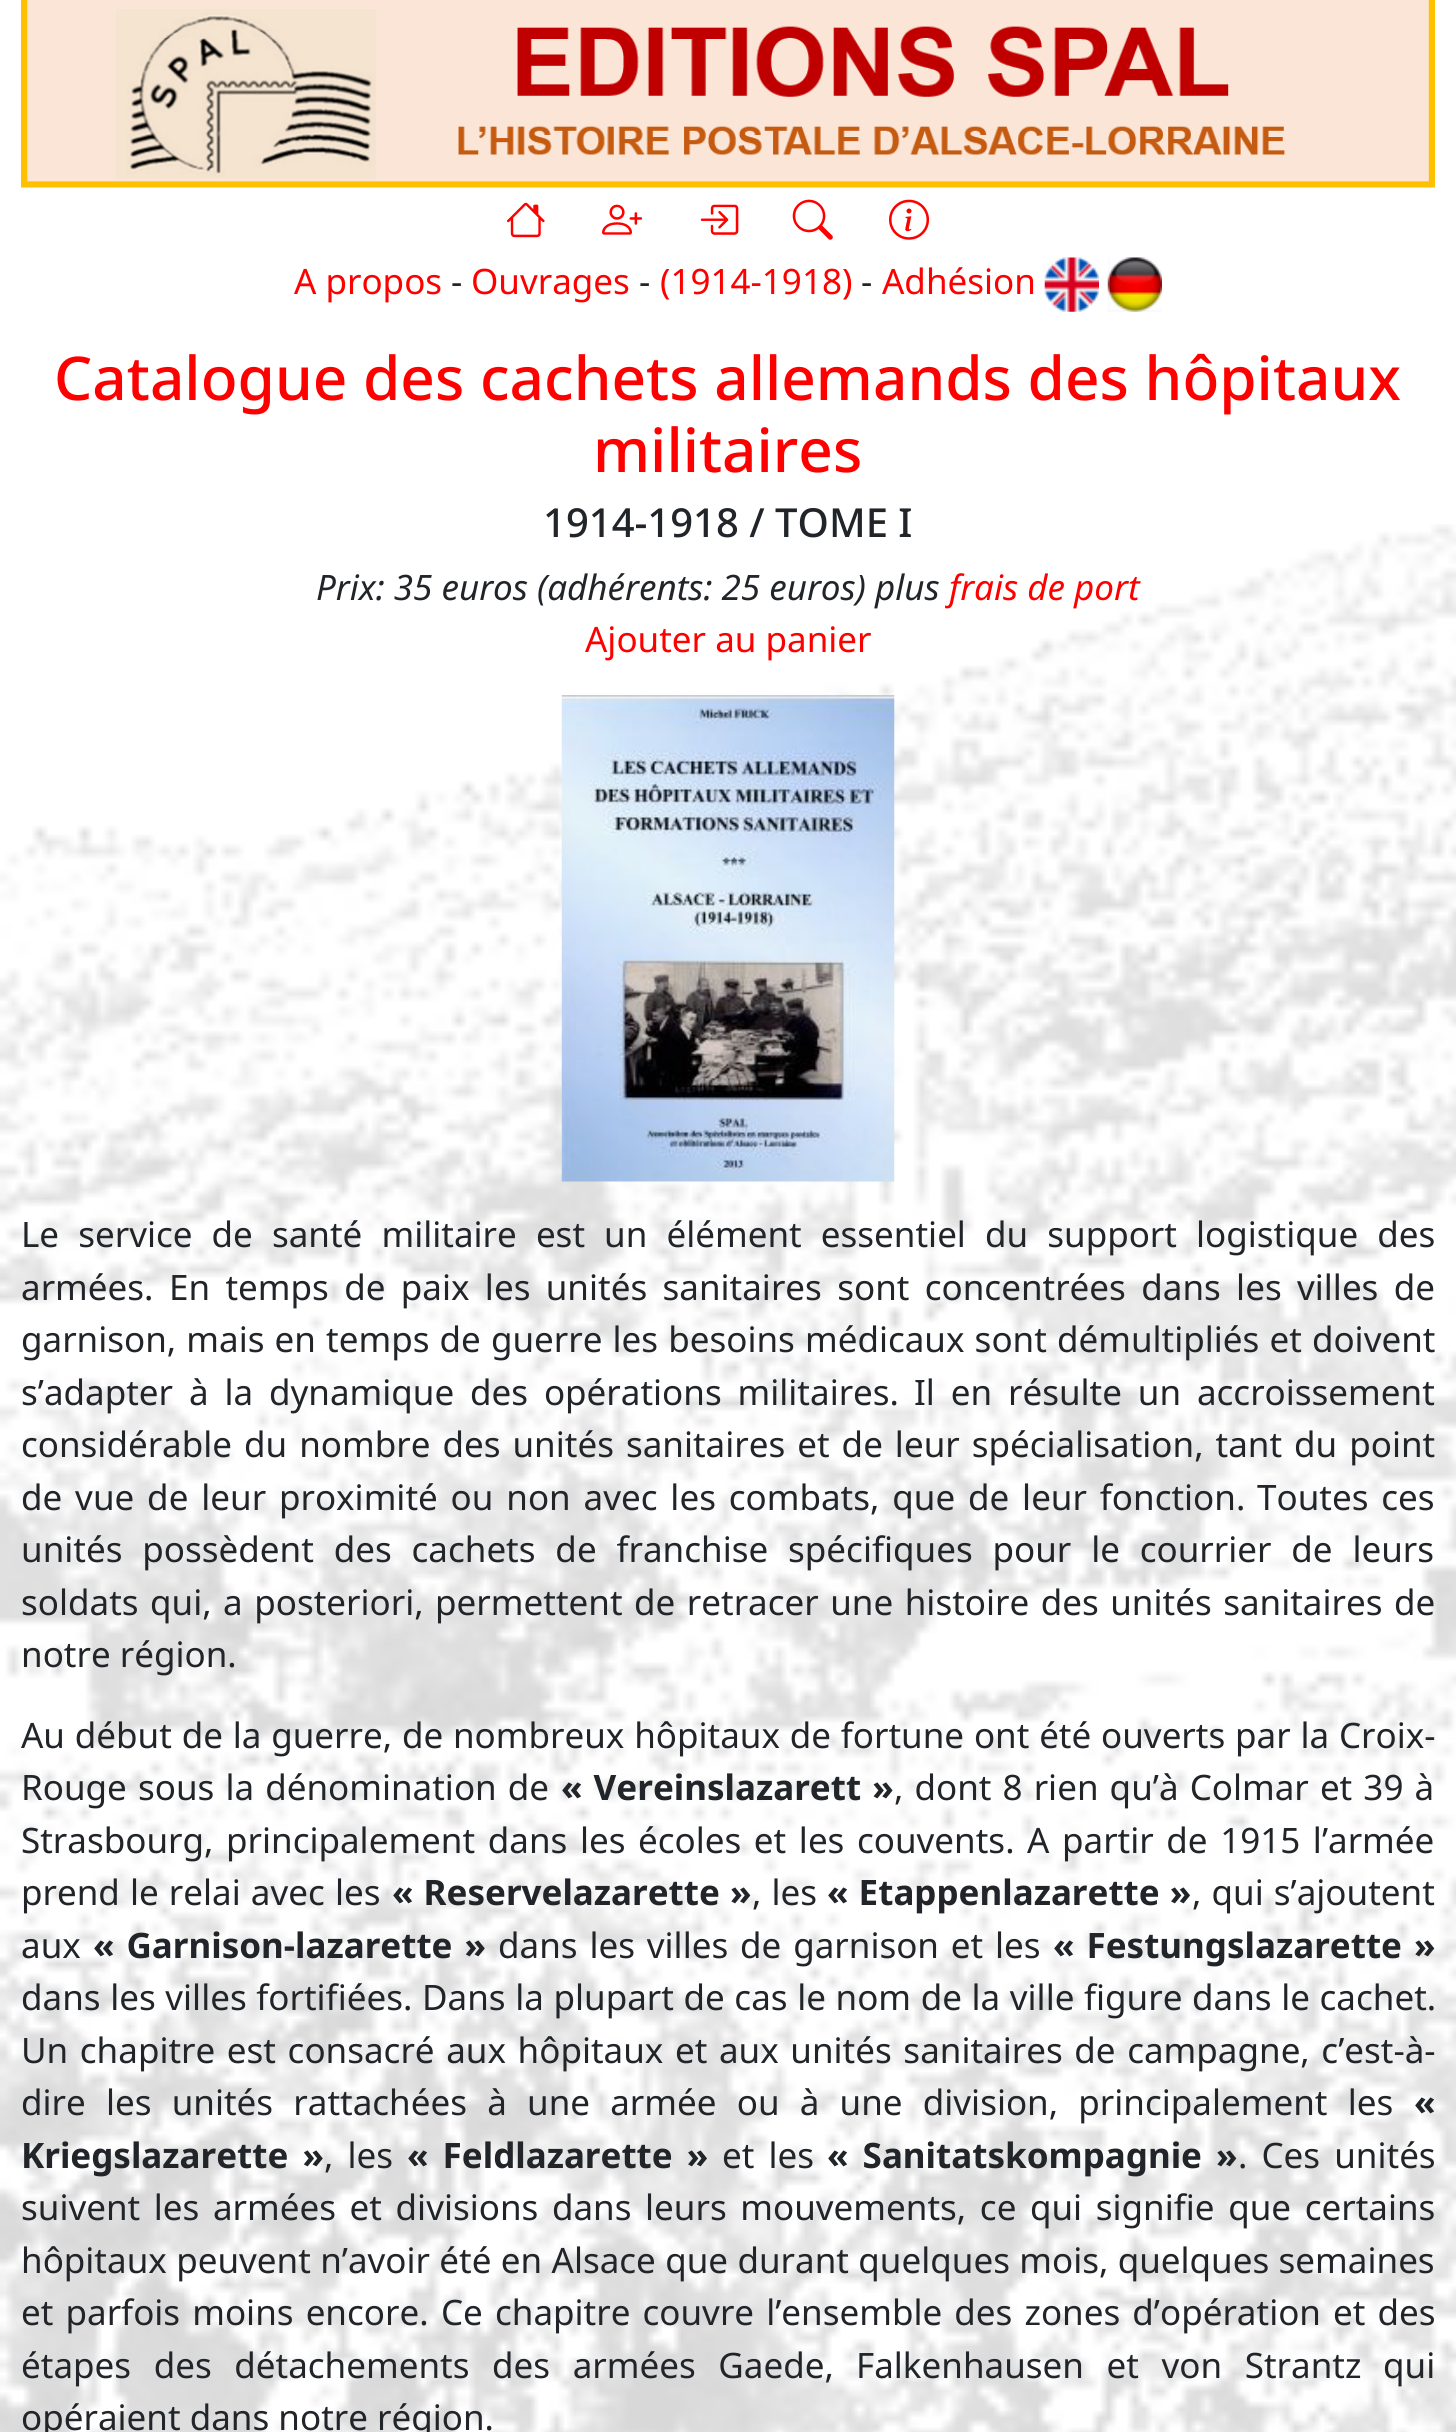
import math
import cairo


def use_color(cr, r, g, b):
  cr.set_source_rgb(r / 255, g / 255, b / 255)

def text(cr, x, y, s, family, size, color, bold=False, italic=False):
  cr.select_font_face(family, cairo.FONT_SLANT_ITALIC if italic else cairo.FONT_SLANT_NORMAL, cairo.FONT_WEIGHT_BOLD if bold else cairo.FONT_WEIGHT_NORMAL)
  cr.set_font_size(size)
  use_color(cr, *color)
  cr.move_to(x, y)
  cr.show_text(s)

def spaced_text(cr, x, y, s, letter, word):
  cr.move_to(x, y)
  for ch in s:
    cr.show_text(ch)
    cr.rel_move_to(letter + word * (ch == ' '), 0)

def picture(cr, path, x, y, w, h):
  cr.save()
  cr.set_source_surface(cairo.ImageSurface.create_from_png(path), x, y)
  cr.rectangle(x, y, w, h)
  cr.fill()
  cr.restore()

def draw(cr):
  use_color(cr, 255, 255, 255)
  cr.paint()
  picture(cr, "img_01.png", 0, 524, 1456, 1908)
  picture(cr, "img_02.png", 21, 0, 1414, 188)
  picture(cr, "img_03.png", 507, 202, 38, 36)
  picture(cr, "img_04.png", 602, 204, 41, 31)
  picture(cr, "img_05.png", 700, 204, 39, 31)
  picture(cr, "img_06.png", 792, 199, 41, 41)
  picture(cr, "img_07.png", 889, 199, 41, 41)
  picture(cr, "img_08.png", 1044, 257, 55, 55)
  picture(cr, "img_09.png", 1107, 257, 55, 55)
  picture(cr, "img_10.png", 561, 695, 334, 487)
  text(cr, 294, 294, "A propos", "Noto Sans", 35, (255, 0, 0))
  text(cr, 451, 294, "-", "Noto Sans", 35, (33, 37, 41))
  text(cr, 471, 294, "Ouvrages", "Noto Sans", 35, (255, 0, 0))
  text(cr, 639, 294, "-", "Noto Sans", 35, (33, 37, 41))
  text(cr, 660, 294, "(1914-1918)", "Noto Sans", 35, (255, 0, 0))
  text(cr, 861, 294, "-", "Noto Sans", 35, (33, 37, 41))
  text(cr, 882, 294, "Adhésion", "Noto Sans", 35, (255, 0, 0))
  text(cr, 54, 400, "Catalogue des cachets allemands des hôpitaux", "Noto Sans Medium", 60.3, (255, 0, 0))
  text(cr, 593, 472, "militaires", "Noto Sans Medium", 60.3, (255, 0, 0))
  text(cr, 543, 537, "1914-1918 / TOME I", "Noto Sans Medium", 40, (33, 37, 41))
  text(cr, 316, 600, "Prix: 35 euros (adhérents: 25 euros) plus", "Noto Sans", 35, (33, 37, 41), italic=True)
  text(cr, 949, 600, "frais de port", "Noto Sans", 35, (255, 0, 0), italic=True)
  text(cr, 585, 652, "Ajouter au panier", "Noto Sans", 35, (255, 0, 0))
  use_color(cr, 33, 37, 41)
  spaced_text(cr, 21, 1247, "Le service de santé militaire est un élément essentiel du support logistique des", 0, 10)
  text(cr, 21, 1300, "armées.", "Noto Sans", 35, (33, 37, 41))
  spaced_text(cr, 169, 1300, "En temps de paix les unités sanitaires sont concentrées dans les villes de", 0, 6.25)
  spaced_text(cr, 21, 1352, "garnison, mais en temps de guerre les besoins médicaux sont démultipliés et doivent", 0, 1)
  spaced_text(cr, 21, 1405, "s’adapter à la dynamique des opérations militaires.", 0, 6.75)
  spaced_text(cr, 914, 1405, "Il en résulte un accroissement", 0, 6.75)
  spaced_text(cr, 21, 1457, "considérable du nombre des unités sanitaires et de leur spécialisation, tant du point", 0, 2.9)
  spaced_text(cr, 21, 1510, "de vue de leur proximité ou non avec les combats, que de leur fonction.", 0, 3.75)
  spaced_text(cr, 1257, 1510, "Toutes ces", 0, 3.75)
  spaced_text(cr, 21, 1562, "unités possèdent des cachets de franchise spécifiques pour le courrier de leurs", 0, 10.75)
  spaced_text(cr, 21, 1615, "soldats qui, a posteriori, permettent de retracer une histoire des unités sanitaires de", 0, 2.4)
  text(cr, 21, 1667, "notre région.", "Noto Sans", 35, (33, 37, 41))
  spaced_text(cr, 21, 1748, "Au début de la guerre, de nombreux hôpitaux de fortune ont été ouverts par la Croix-", 0, 0.7)
  spaced_text(cr, 21, 1800, "Rouge sous la dénomination de", 0, 2)
  cr.select_font_face("Noto Sans", cairo.FONT_SLANT_NORMAL, cairo.FONT_WEIGHT_BOLD)
  spaced_text(cr, 561, 1800, "« Vereinslazarett »", 0, 2)
  cr.select_font_face("Noto Sans")
  spaced_text(cr, 894, 1800, ", dont 8 rien qu’à Colmar et 39 à", 0, 2)
  spaced_text(cr, 21, 1853, "Strasbourg, principalement dans les écoles et les couvents.", 0, 3.5)
  spaced_text(cr, 1027, 1853, "A partir de 1915 l’armée", 0, 3.5)
  spaced_text(cr, 21, 1905, "prend le relai avec les", 0, 1)
  cr.select_font_face("Noto Sans", cairo.FONT_SLANT_NORMAL, cairo.FONT_WEIGHT_BOLD)
  spaced_text(cr, 392, 1905, "« Reservelazarette »", 0, 1)
  cr.select_font_face("Noto Sans")
  spaced_text(cr, 752, 1905, ", les", 0, 1)
  cr.select_font_face("Noto Sans", cairo.FONT_SLANT_NORMAL, cairo.FONT_WEIGHT_BOLD)
  spaced_text(cr, 827, 1905, "« Etappenlazarette »", 0, 1)
  cr.select_font_face("Noto Sans")
  spaced_text(cr, 1192, 1905, ", qui s’ajoutent", 0, 1)
  text(cr, 21, 1958, "aux", "Noto Sans", 35, (33, 37, 41))
  cr.select_font_face("Noto Sans", cairo.FONT_SLANT_NORMAL, cairo.FONT_WEIGHT_BOLD)
  spaced_text(cr, 93, 1958, "« Garnison-lazarette »", 0, 2.9)
  cr.select_font_face("Noto Sans")
  spaced_text(cr, 498, 1958, "dans les villes de garnison et les", 0, 2.75)
  cr.select_font_face("Noto Sans", cairo.FONT_SLANT_NORMAL, cairo.FONT_WEIGHT_BOLD)
  spaced_text(cr, 1053, 1958, "« Festungslazarette »", 0, 2.9)
  cr.select_font_face("Noto Sans")
  spaced_text(cr, 21, 2010, "dans les villes fortifiées.", 0, 0.5)
  spaced_text(cr, 422, 2010, "Dans la plupart de cas le nom de la ville figure dans le cachet.", 0, 0.5)
  spaced_text(cr, 21, 2063, "Un chapitre est consacré aux hôpitaux et aux unités sanitaires de campagne, c’est-à-", 0, 2.5)
  spaced_text(cr, 21, 2115, "dire les unités rattachées à une armée ou à une division, principalement les", 0, 11.1)
  text(cr, 1414, 2115, "«", "Noto Sans", 35, (33, 37, 41), bold=True)
  spaced_text(cr, 21, 2168, "Kriegslazarette »", 0, 5)
  cr.select_font_face("Noto Sans")
  spaced_text(cr, 324, 2168, ", les", 0, 5)
  cr.select_font_face("Noto Sans", cairo.FONT_SLANT_NORMAL, cairo.FONT_WEIGHT_BOLD)
  spaced_text(cr, 407, 2168, "« Feldlazarette »", 0, 5)
  cr.select_font_face("Noto Sans")
  spaced_text(cr, 722, 2168, "et les", 0, 5)
  cr.select_font_face("Noto Sans", cairo.FONT_SLANT_NORMAL, cairo.FONT_WEIGHT_BOLD)
  spaced_text(cr, 827, 2168, "« Sanitatskompagnie »", 0, 5)
  cr.select_font_face("Noto Sans")
  spaced_text(cr, 1238, 2168, ". Ces unités", 0, 5)
  spaced_text(cr, 21, 2220, "suivent les armées et divisions dans leurs mouvements, ce qui signifie que certains", 0, 4.5)
  spaced_text(cr, 21, 2273, "hôpitaux peuvent n’avoir été en Alsace que durant quelques mois, quelques semaines", 0, 0.25)
  spaced_text(cr, 21, 2325, "et parfois moins encore.", 0, 3)
  spaced_text(cr, 441, 2325, "Ce chapitre couvre l’ensemble des zones d’opération et des", 0, 3)
  spaced_text(cr, 21, 2378, "étapes des détachements des armées Gaede,", 0, 13.5)
  spaced_text(cr, 856, 2378, "Falkenhausen et von Strantz", 0, 13.5)
  text(cr, 1383, 2378, "qui", "Noto Sans", 35, (33, 37, 41))
  text(cr, 21, 2430, "opéraient dans notre région.", "Noto Sans", 35, (33, 37, 41))


surface = cairo.ImageSurface(cairo.FORMAT_RGB24, 1456, 2432)
cr = cairo.Context(surface)
options = cairo.FontOptions()
options.set_hint_metrics(cairo.HINT_METRICS_OFF)
options.set_hint_style(cairo.HINT_STYLE_NONE)
cr.set_font_options(options)
cr.set_miter_limit(4)
draw(cr)
surface.write_to_png("out.png")
